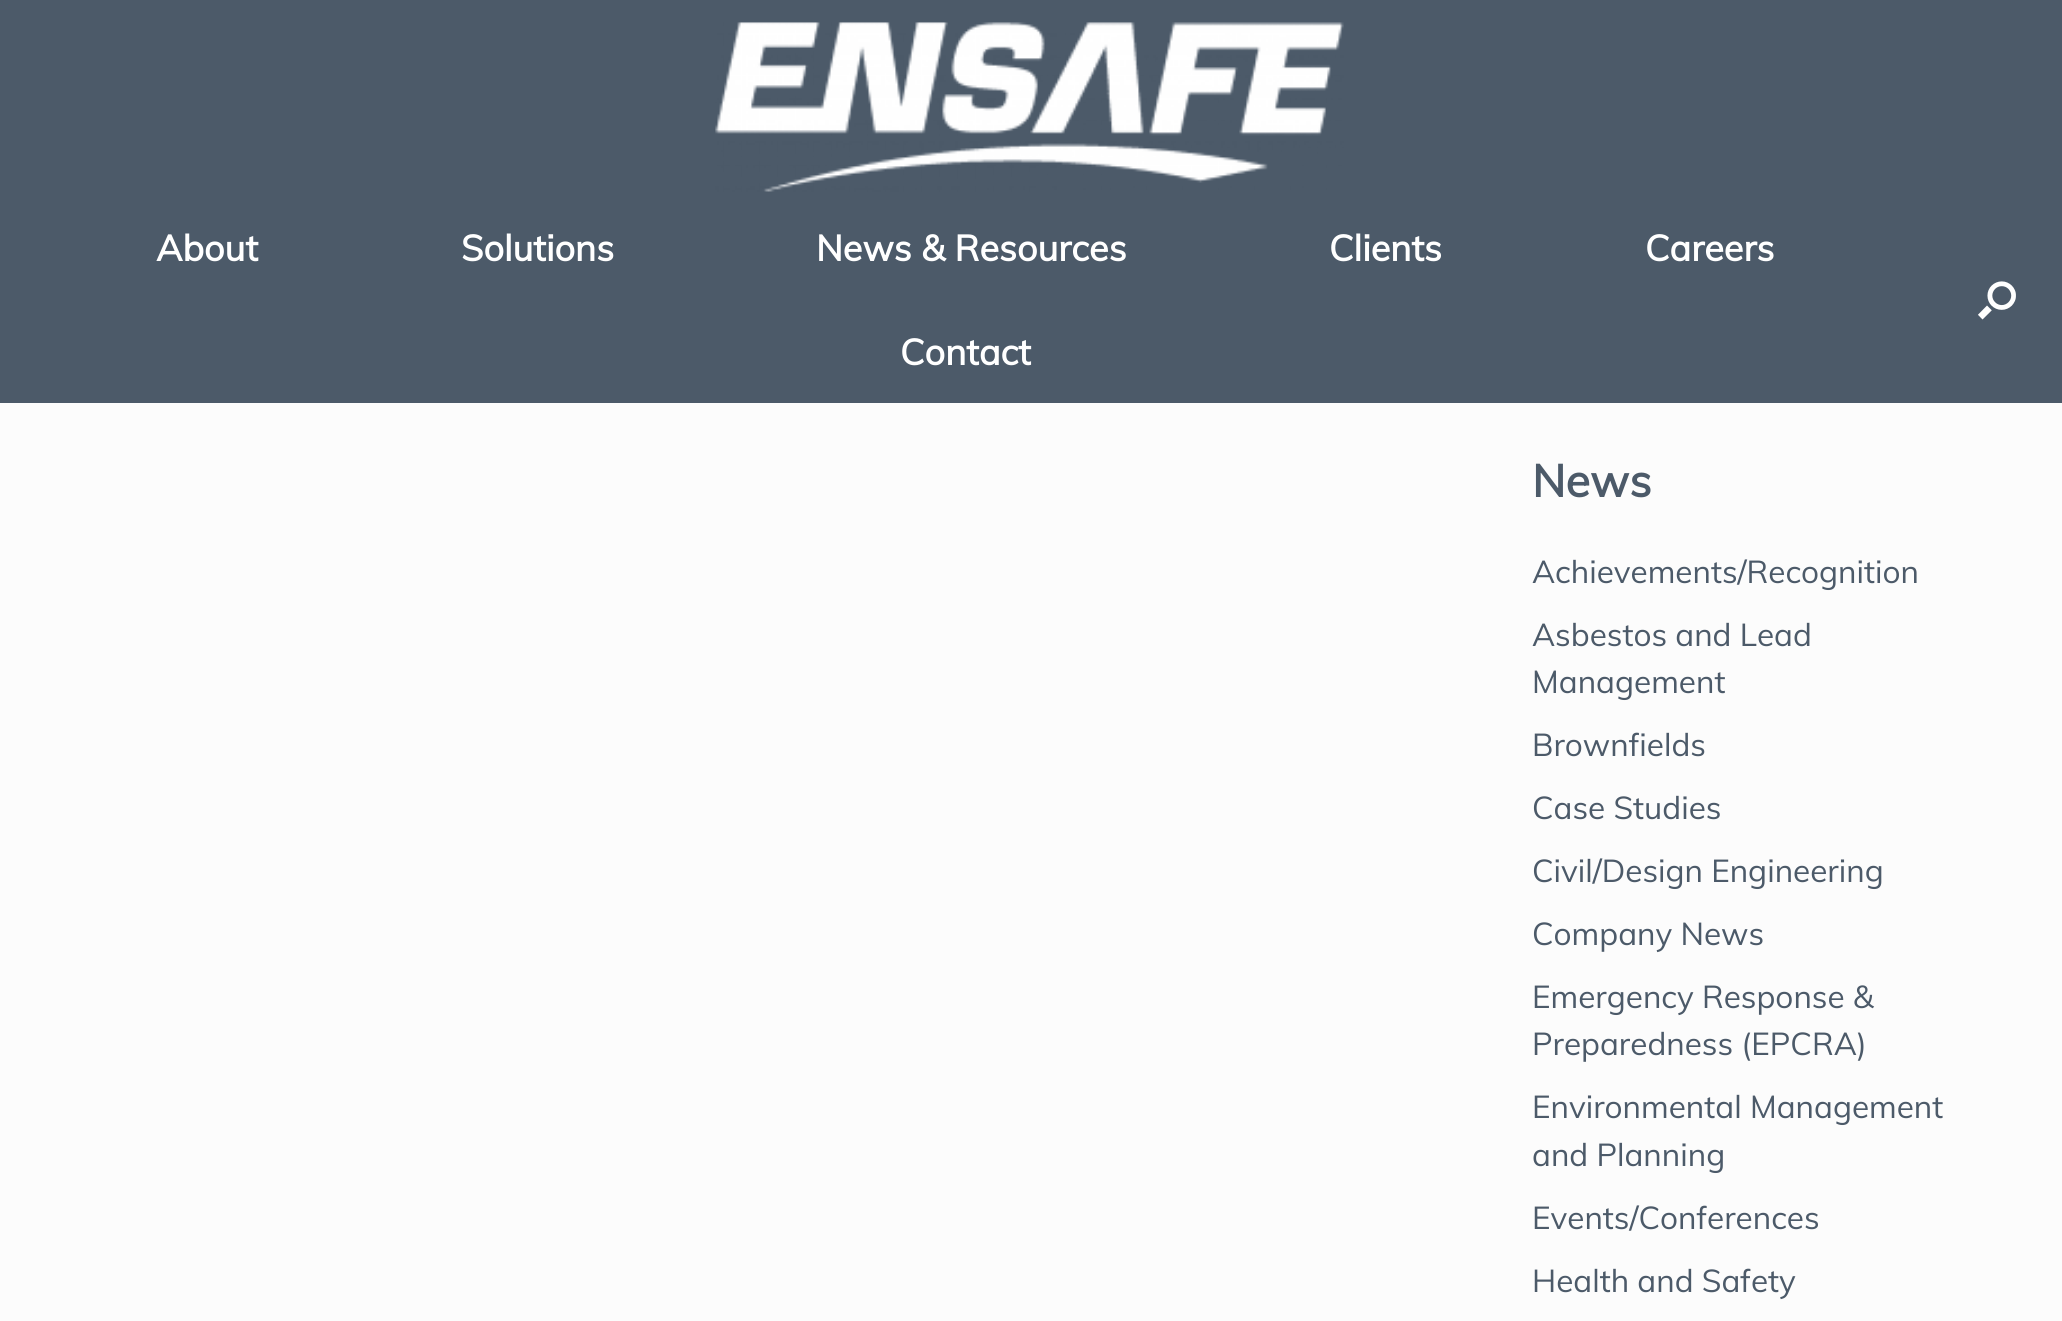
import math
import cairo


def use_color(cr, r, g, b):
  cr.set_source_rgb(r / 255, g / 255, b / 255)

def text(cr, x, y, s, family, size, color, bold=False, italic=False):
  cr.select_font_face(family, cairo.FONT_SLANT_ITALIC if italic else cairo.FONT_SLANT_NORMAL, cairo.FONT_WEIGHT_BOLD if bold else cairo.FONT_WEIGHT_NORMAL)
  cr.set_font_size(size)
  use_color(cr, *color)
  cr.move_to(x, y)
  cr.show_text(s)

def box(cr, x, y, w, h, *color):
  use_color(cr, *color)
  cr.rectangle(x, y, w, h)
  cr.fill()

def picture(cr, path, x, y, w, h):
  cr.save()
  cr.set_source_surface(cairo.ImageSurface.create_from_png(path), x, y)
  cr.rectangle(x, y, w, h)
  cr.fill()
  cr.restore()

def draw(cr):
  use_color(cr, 76, 90, 105)
  cr.paint()
  picture(cr, "img_01.png", 715, 22, 629, 170)
  picture(cr, "img_02.png", 1978, 281, 38, 39)
  box(cr, 0, 403, 2062, 918, 252, 252, 252)
  text(cr, 156, 261, "About", "Muli", 36, (255, 255, 255), bold=True)
  text(cr, 461, 261, "Solutions", "Muli", 36, (255, 255, 255), bold=True)
  text(cr, 816, 261, "News & Resources", "Muli", 36, (255, 255, 255), bold=True)
  text(cr, 1329, 261, "Clients", "Muli", 36, (255, 255, 255), bold=True)
  text(cr, 1645, 261, "Careers", "Muli", 36, (255, 255, 255), bold=True)
  text(cr, 900, 365, "Contact", "Muli", 36, (255, 255, 255), bold=True)
  text(cr, 1532, 497, "News", "Muli", 45, (76, 90, 105), bold=True)
  text(cr, 1532, 583, "Achievements/Recognition", "Muli", 31.5, (76, 90, 105))
  text(cr, 1532, 646, "Asbestos and Lead", "Muli", 31.5, (76, 90, 105))
  text(cr, 1532, 693, "Management", "Muli", 31.5, (76, 90, 105))
  text(cr, 1532, 756, "Brownfields", "Muli", 31.5, (76, 90, 105))
  text(cr, 1532, 819, "Case Studies", "Muli", 31.5, (76, 90, 105))
  text(cr, 1532, 882, "Civil/Design Engineering", "Muli", 31.5, (76, 90, 105))
  text(cr, 1532, 945, "Company News", "Muli", 31.5, (76, 90, 105))
  text(cr, 1532, 1008, "Emergency Response &", "Muli", 31.5, (76, 90, 105))
  text(cr, 1532, 1055, "Preparedness (EPCRA)", "Muli", 31.5, (76, 90, 105))
  text(cr, 1532, 1118, "Environmental Management", "Muli", 31.5, (76, 90, 105))
  text(cr, 1532, 1166, "and Planning", "Muli", 31.5, (76, 90, 105))
  text(cr, 1532, 1229, "Events/Conferences", "Muli", 31.5, (76, 90, 105))
  text(cr, 1532, 1292, "Health and Safety", "Muli", 31.5, (76, 90, 105))


surface = cairo.ImageSurface(cairo.FORMAT_RGB24, 2062, 1321)
cr = cairo.Context(surface)
options = cairo.FontOptions()
options.set_hint_metrics(cairo.HINT_METRICS_OFF)
options.set_hint_style(cairo.HINT_STYLE_NONE)
cr.set_font_options(options)
cr.set_miter_limit(4)
draw(cr)
surface.write_to_png("out.png")
